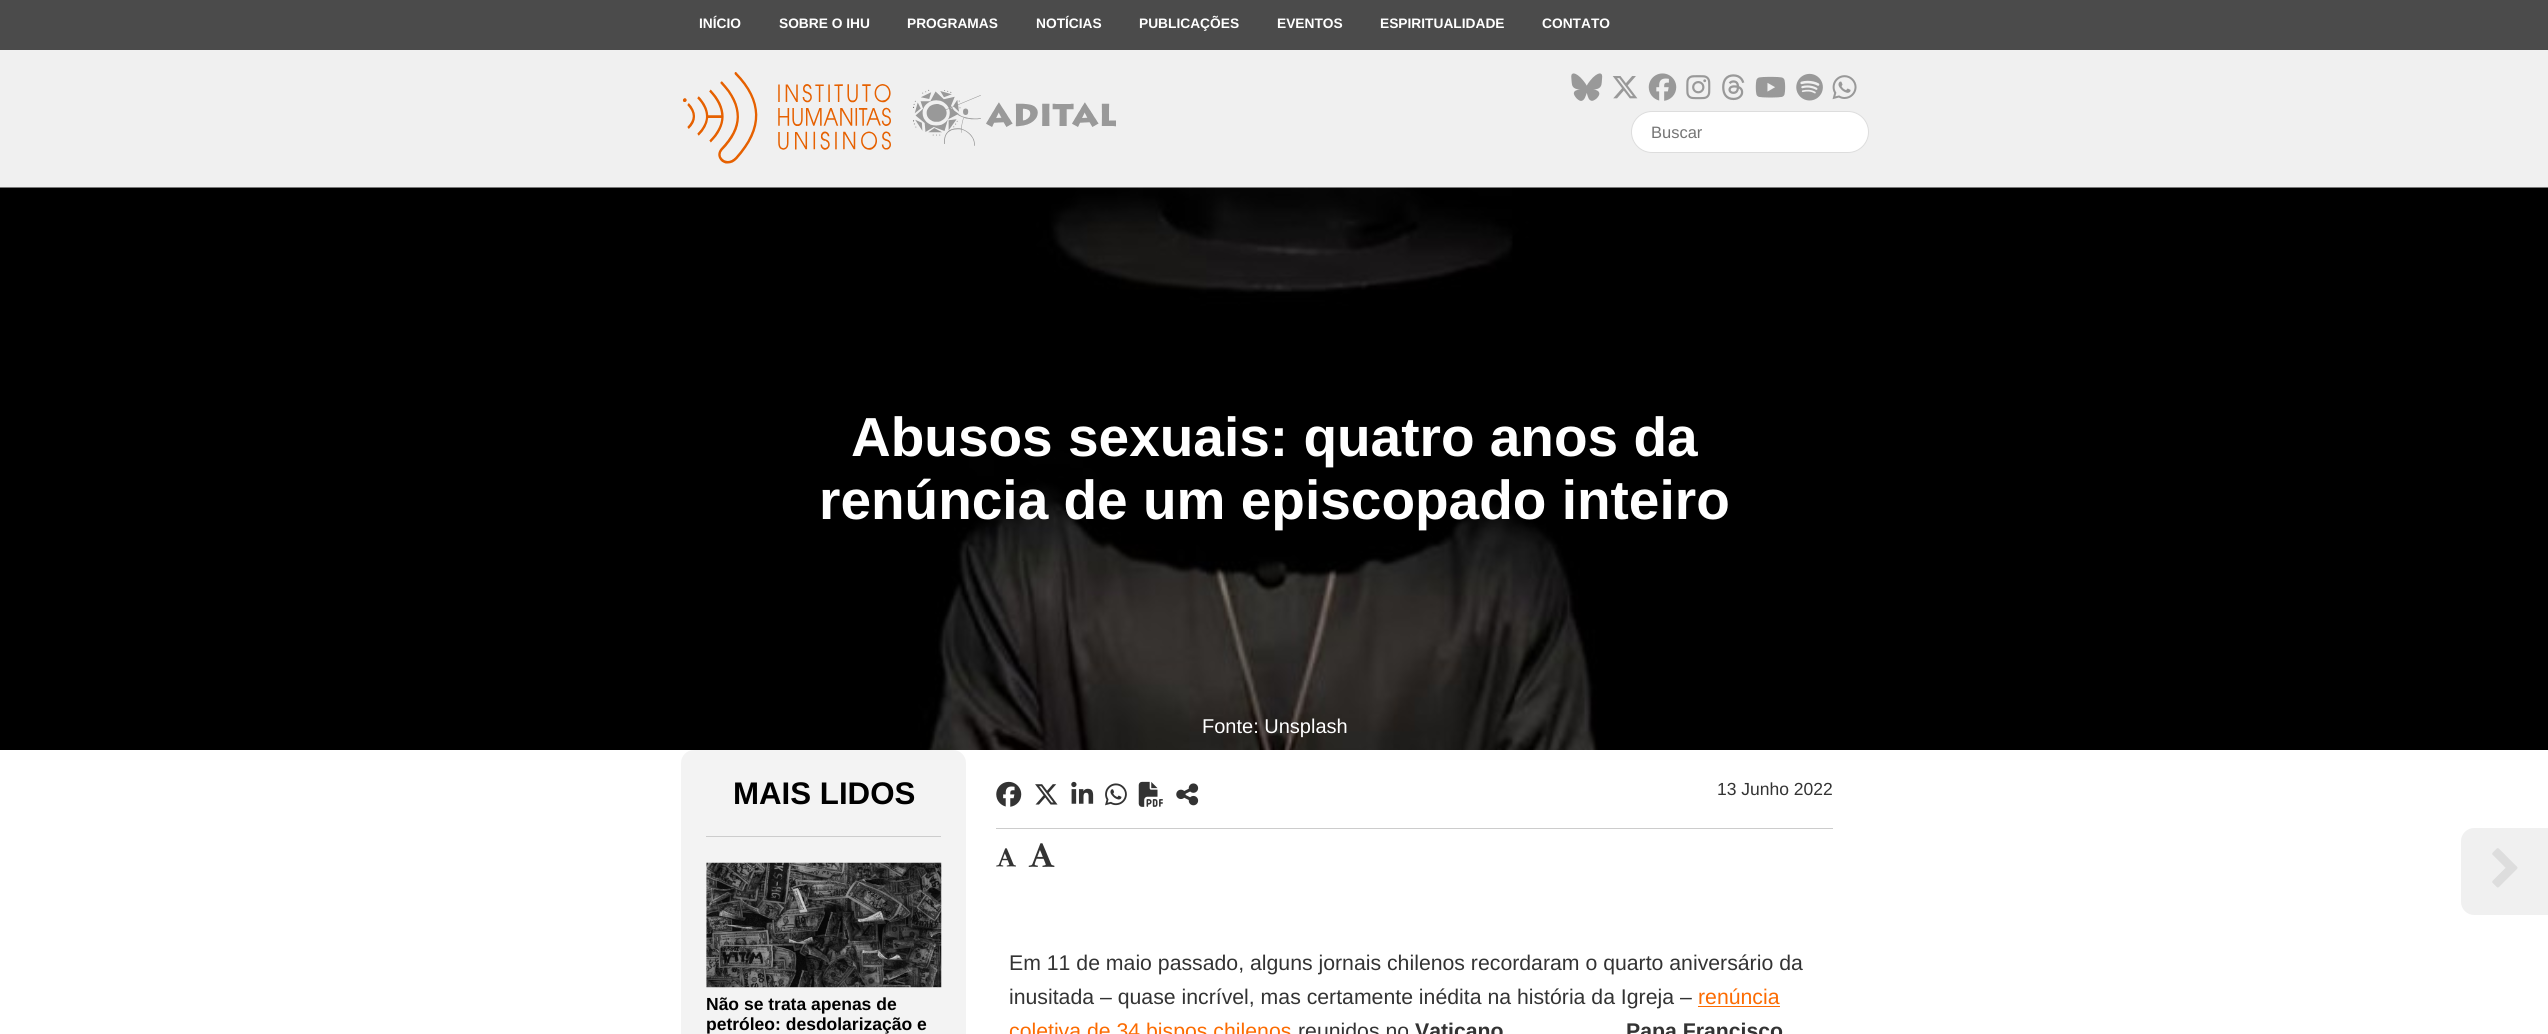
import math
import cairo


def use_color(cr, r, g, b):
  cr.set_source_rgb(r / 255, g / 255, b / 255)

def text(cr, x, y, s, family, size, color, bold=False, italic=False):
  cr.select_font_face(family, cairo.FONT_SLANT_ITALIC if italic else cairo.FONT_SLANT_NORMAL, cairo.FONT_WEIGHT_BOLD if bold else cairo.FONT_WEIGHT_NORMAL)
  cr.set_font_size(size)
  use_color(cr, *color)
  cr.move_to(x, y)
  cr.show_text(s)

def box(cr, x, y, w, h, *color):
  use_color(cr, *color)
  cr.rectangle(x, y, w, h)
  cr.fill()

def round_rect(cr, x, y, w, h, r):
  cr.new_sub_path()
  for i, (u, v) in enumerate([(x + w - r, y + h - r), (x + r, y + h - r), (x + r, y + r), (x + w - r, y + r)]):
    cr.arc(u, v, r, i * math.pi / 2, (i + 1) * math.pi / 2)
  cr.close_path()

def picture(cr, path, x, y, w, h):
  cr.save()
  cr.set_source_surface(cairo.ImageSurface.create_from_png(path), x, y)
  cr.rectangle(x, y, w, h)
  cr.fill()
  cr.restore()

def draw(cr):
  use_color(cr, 255, 255, 255)
  cr.paint()
  box(cr, 0, 0, 2548, 50, 75, 75, 75)
  box(cr, 0, 50, 2548, 138, 240, 240, 240)
  picture(cr, "img_01.png", 682, 72, 434, 92)
  picture(cr, "img_02.png", 1571, 73, 32, 28)
  picture(cr, "img_03.png", 1612, 76, 26, 23)
  picture(cr, "img_04.png", 1648, 73, 29, 28)
  picture(cr, "img_05.png", 1686, 75, 25, 25)
  picture(cr, "img_06.png", 1722, 74, 23, 27)
  picture(cr, "img_07.png", 1755, 76, 31, 22)
  picture(cr, "img_08.png", 1796, 73, 27, 28)
  picture(cr, "img_09.png", 1832, 75, 25, 25)
  use_color(cr, 255, 255, 255)
  round_rect(cr, 1631.5, 111.5, 237, 41, 20.5)
  cr.fill_preserve()
  use_color(cr, 221, 221, 221)
  cr.set_line_width(1)
  cr.stroke()
  picture(cr, "img_10.png", 0, 187, 2548, 563)
  use_color(cr, 243, 243, 243)
  round_rect(cr, 681, 750, 285, 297, 13)
  cr.fill()
  box(cr, 706, 836, 235, 1, 204, 204, 204)
  picture(cr, "img_11.png", 706, 862, 236, 126)
  box(cr, 996, 828, 837, 1, 204, 204, 204)
  picture(cr, "img_12.png", 996, 781, 26, 26)
  picture(cr, "img_13.png", 1035, 784, 23, 21)
  picture(cr, "img_14.png", 1071, 781, 23, 23)
  picture(cr, "img_15.png", 1105, 783, 22, 23)
  picture(cr, "img_16.png", 1138, 781, 25, 26)
  picture(cr, "img_17.png", 1176, 783, 23, 23)
  picture(cr, "img_18.png", 996, 848, 20, 19)
  picture(cr, "img_19.png", 1028, 843, 27, 24)
  box(cr, 1698, 1006, 82, 1, 252, 107, 1)
  use_color(cr, 240, 240, 240)
  cr.new_path()
  cr.move_to(2474, 828)
  cr.line_to(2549, 828)
  cr.line_to(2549, 915)
  cr.line_to(2474, 915)
  cr.curve_to(2467, 915, 2461, 909, 2461, 902)
  cr.line_to(2461, 841)
  cr.curve_to(2461, 834, 2467, 828, 2474, 828)
  cr.close_path()
  cr.fill()
  picture(cr, "img_20.png", 2492, 848, 26, 40)
  text(cr, 699, 28, "INÍCIO", "Liberation Sans", 13.75, (255, 255, 255), bold=True)
  text(cr, 779, 28, "SOBRE O IHU", "Liberation Sans", 13.75, (255, 255, 255), bold=True)
  text(cr, 907, 28, "PROGRAMAS", "Liberation Sans", 13.75, (255, 255, 255), bold=True)
  text(cr, 1036, 28, "NOTÍCIAS", "Liberation Sans", 13.75, (255, 255, 255), bold=True)
  text(cr, 1139, 28, "PUBLICAÇÕES", "Liberation Sans", 13.75, (255, 255, 255), bold=True)
  text(cr, 1277, 28, "EVENTOS", "Liberation Sans", 13.75, (255, 255, 255), bold=True)
  text(cr, 1380, 28, "ESPIRITUALIDADE", "Liberation Sans", 13.75, (255, 255, 255), bold=True)
  text(cr, 1542, 28, "CONTATO", "Liberation Sans", 13.75, (255, 255, 255), bold=True)
  text(cr, 1651, 138, "Buscar", "Liberation Sans", 16.5, (117, 117, 117))
  text(cr, 851, 456, "Abusos sexuais: quatro anos da", "Liberation Sans", 55, (255, 255, 255), bold=True)
  text(cr, 819, 519, "renúncia de um episcopado inteiro", "Liberation Sans", 55, (255, 255, 255), bold=True)
  text(cr, 1202, 733, "Fonte: Unsplash", "Liberation Sans", 20, (255, 255, 255))
  text(cr, 733, 804, "MAIS LIDOS", "Liberation Sans", 31.25, (0, 0, 0), bold=True)
  text(cr, 706, 1010, "Não se trata apenas de", "Liberation Sans", 17.5, (0, 0, 0), bold=True)
  text(cr, 706, 1030, "petróleo: desdolarização e", "Liberation Sans", 17.5, (0, 0, 0), bold=True)
  text(cr, 1717, 795, "13 Junho 2022", "Liberation Sans", 17.5, (51, 51, 51))
  text(cr, 1009, 970, "Em 11 de maio passado, alguns jornais chilenos recordaram o quarto aniversário da", "Liberation Sans", 21.25, (51, 51, 51))
  text(cr, 1009, 1004, "inusitada – quase incrível, mas certamente inédita na história da Igreja –", "Liberation Sans", 21.25, (51, 51, 51))
  text(cr, 1698, 1004, "renúncia", "Liberation Sans", 21.25, (252, 107, 1))
  text(cr, 1009, 1038, "coletiva de 34 bispos chilenos", "Liberation Sans", 21.25, (252, 107, 1))
  text(cr, 1298, 1038, "reunidos no", "Liberation Sans", 21.25, (51, 51, 51))
  text(cr, 1415, 1038, "Vaticano", "Liberation Sans", 21.25, (51, 51, 51), bold=True)
  text(cr, 1626, 1038, "Papa Francisco", "Liberation Sans", 21.25, (51, 51, 51), bold=True)


surface = cairo.ImageSurface(cairo.FORMAT_RGB24, 2548, 1034)
cr = cairo.Context(surface)
options = cairo.FontOptions()
options.set_hint_metrics(cairo.HINT_METRICS_OFF)
options.set_hint_style(cairo.HINT_STYLE_NONE)
cr.set_font_options(options)
cr.set_miter_limit(4)
draw(cr)
surface.write_to_png("out.png")
